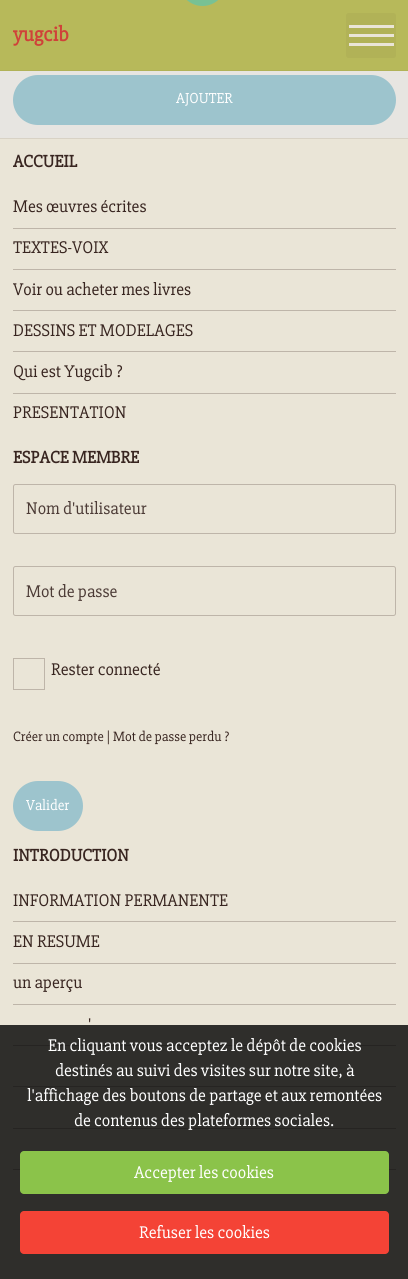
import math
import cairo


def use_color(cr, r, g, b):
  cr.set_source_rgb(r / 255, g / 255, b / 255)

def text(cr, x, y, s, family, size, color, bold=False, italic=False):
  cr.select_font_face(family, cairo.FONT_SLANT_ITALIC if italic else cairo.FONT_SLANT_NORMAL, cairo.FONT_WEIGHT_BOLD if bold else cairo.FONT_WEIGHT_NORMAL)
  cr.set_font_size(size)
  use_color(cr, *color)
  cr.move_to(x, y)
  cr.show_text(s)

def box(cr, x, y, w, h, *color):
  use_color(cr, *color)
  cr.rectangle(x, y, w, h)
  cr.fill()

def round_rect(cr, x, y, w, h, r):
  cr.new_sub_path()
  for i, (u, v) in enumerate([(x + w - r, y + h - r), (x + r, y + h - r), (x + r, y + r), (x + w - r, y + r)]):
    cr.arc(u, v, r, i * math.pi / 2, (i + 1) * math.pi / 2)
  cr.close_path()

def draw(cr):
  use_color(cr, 234, 229, 215)
  cr.paint()
  box(cr, 0, 0, 408, 70, 183, 185, 90)
  box(cr, 0, 70, 408, 1, 177, 178, 87)
  round_rect(cr, 346, 13, 50, 45, 2.5)
  cr.fill()
  box(cr, 349, 25, 45, 3, 234, 229, 215)
  box(cr, 349, 34, 45, 3, 234, 229, 215)
  box(cr, 349, 43, 45, 3, 234, 229, 215)
  box(cr, 0, 71, 408, 67, 231, 229, 225)
  round_rect(cr, 185.5, -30.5, 34, 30, 17)
  use_color(cr, 120, 193, 148)
  cr.set_line_width(13)
  cr.stroke()
  use_color(cr, 157, 196, 205)
  round_rect(cr, 13, 75, 383, 50, 25)
  cr.fill()
  box(cr, 0, 138, 408, 1, 216, 210, 197)
  box(cr, 13, 228, 383, 1, 190, 181, 169)
  box(cr, 13, 269, 383, 1, 190, 181, 169)
  box(cr, 13, 310, 383, 1, 190, 181, 169)
  box(cr, 13, 351, 383, 1, 190, 181, 169)
  box(cr, 13, 393, 383, 1, 190, 181, 169)
  round_rect(cr, 13.5, 484.5, 382, 49, 2)
  cr.set_line_width(1)
  cr.stroke()
  round_rect(cr, 13.5, 566.5, 382, 49, 2)
  cr.stroke()
  cr.rectangle(13.5, 658.5, 31, 31)
  cr.stroke()
  use_color(cr, 157, 196, 205)
  round_rect(cr, 13, 781, 70, 50, 25)
  cr.fill()
  box(cr, 13, 921, 383, 1, 190, 181, 169)
  box(cr, 13, 963, 383, 1, 190, 181, 169)
  box(cr, 13, 1004, 383, 1, 190, 181, 169)
  box(cr, 13, 1045, 383, 1, 190, 181, 169)
  box(cr, 13, 1086, 383, 1, 190, 181, 169)
  box(cr, 13, 1128, 383, 1, 190, 181, 169)
  box(cr, 13, 1169, 383, 1, 190, 181, 169)
  cr.set_source_rgba(0, 0, 0, 0.8)
  cr.rectangle(0, 1025, 408, 254)
  cr.fill()
  use_color(cr, 139, 195, 74)
  round_rect(cr, 20, 1151, 369, 43, 4)
  cr.fill()
  use_color(cr, 244, 67, 54)
  round_rect(cr, 20, 1211, 369, 43, 4)
  cr.fill()
  text(cr, 13, 41, "yugcib", "Slabo 27px", 21, (207, 66, 57), bold=True)
  text(cr, 176, 103, "AJOUTER", "Slabo 27px", 15, (255, 255, 255))
  text(cr, 13, 167, "ACCUEIL", "Slabo 27px", 17.5, (56, 37, 32), bold=True)
  text(cr, 13, 212, "Mes œuvres écrites", "Slabo 27px", 17.5, (56, 37, 32))
  text(cr, 13, 253, "TEXTES-VOIX", "Slabo 27px", 17.5, (56, 37, 32))
  text(cr, 13, 295, "Voir ou acheter mes livres", "Slabo 27px", 17.5, (56, 37, 32))
  text(cr, 13, 336, "DESSINS ET MODELAGES", "Slabo 27px", 17.5, (56, 37, 32))
  text(cr, 13, 377, "Qui est Yugcib ?", "Slabo 27px", 17.5, (56, 37, 32))
  text(cr, 13, 418, "PRESENTATION", "Slabo 27px", 17.5, (56, 37, 32))
  text(cr, 13, 463, "ESPACE MEMBRE", "Slabo 27px", 17.5, (56, 37, 32), bold=True)
  text(cr, 26, 514, "Nom d'utilisateur", "Slabo 27px", 17.5, (76, 59, 54))
  text(cr, 26, 597, "Mot de passe", "Slabo 27px", 17.5, (76, 59, 54))
  text(cr, 51, 675, "Rester connecté", "Slabo 27px", 17.5, (56, 37, 32))
  text(cr, 13, 741, "Créer un compte | Mot de passe perdu ?", "Slabo 27px", 14, (56, 37, 32))
  text(cr, 26, 810, "Valider", "Slabo 27px", 15, (255, 255, 255))
  text(cr, 13, 861, "INTRODUCTION", "Slabo 27px", 17.5, (56, 37, 32), bold=True)
  text(cr, 13, 906, "INFORMATION PERMANENTE", "Slabo 27px", 17.5, (56, 37, 32))
  text(cr, 13, 947, "EN RESUME", "Slabo 27px", 17.5, (56, 37, 32))
  text(cr, 13, 988, "un aperçu", "Slabo 27px", 17.5, (56, 37, 32))
  text(cr, 88, 1030, "'", "Slabo 27px", 17.5, (56, 37, 32))
  text(cr, 48, 1051, "En cliquant vous acceptez le dépôt de cookies", "Slabo 27px", 17.5, (255, 255, 255))
  text(cr, 55, 1076, "destinés au suivi des visites sur notre site, à", "Slabo 27px", 17.5, (255, 255, 255))
  text(cr, 27, 1101, "l'affichage des boutons de partage et aux remontées", "Slabo 27px", 17.5, (255, 255, 255))
  text(cr, 74, 1126, "de contenus des plateformes sociales.", "Slabo 27px", 17.5, (255, 255, 255))
  text(cr, 134, 1178, "Accepter les cookies", "Slabo 27px", 17.5, (255, 255, 255))
  text(cr, 139, 1238, "Refuser les cookies", "Slabo 27px", 17.5, (255, 255, 255))


surface = cairo.ImageSurface(cairo.FORMAT_RGB24, 408, 1279)
cr = cairo.Context(surface)
options = cairo.FontOptions()
options.set_hint_metrics(cairo.HINT_METRICS_OFF)
options.set_hint_style(cairo.HINT_STYLE_NONE)
cr.set_font_options(options)
cr.set_miter_limit(4)
draw(cr)
surface.write_to_png("out.png")
